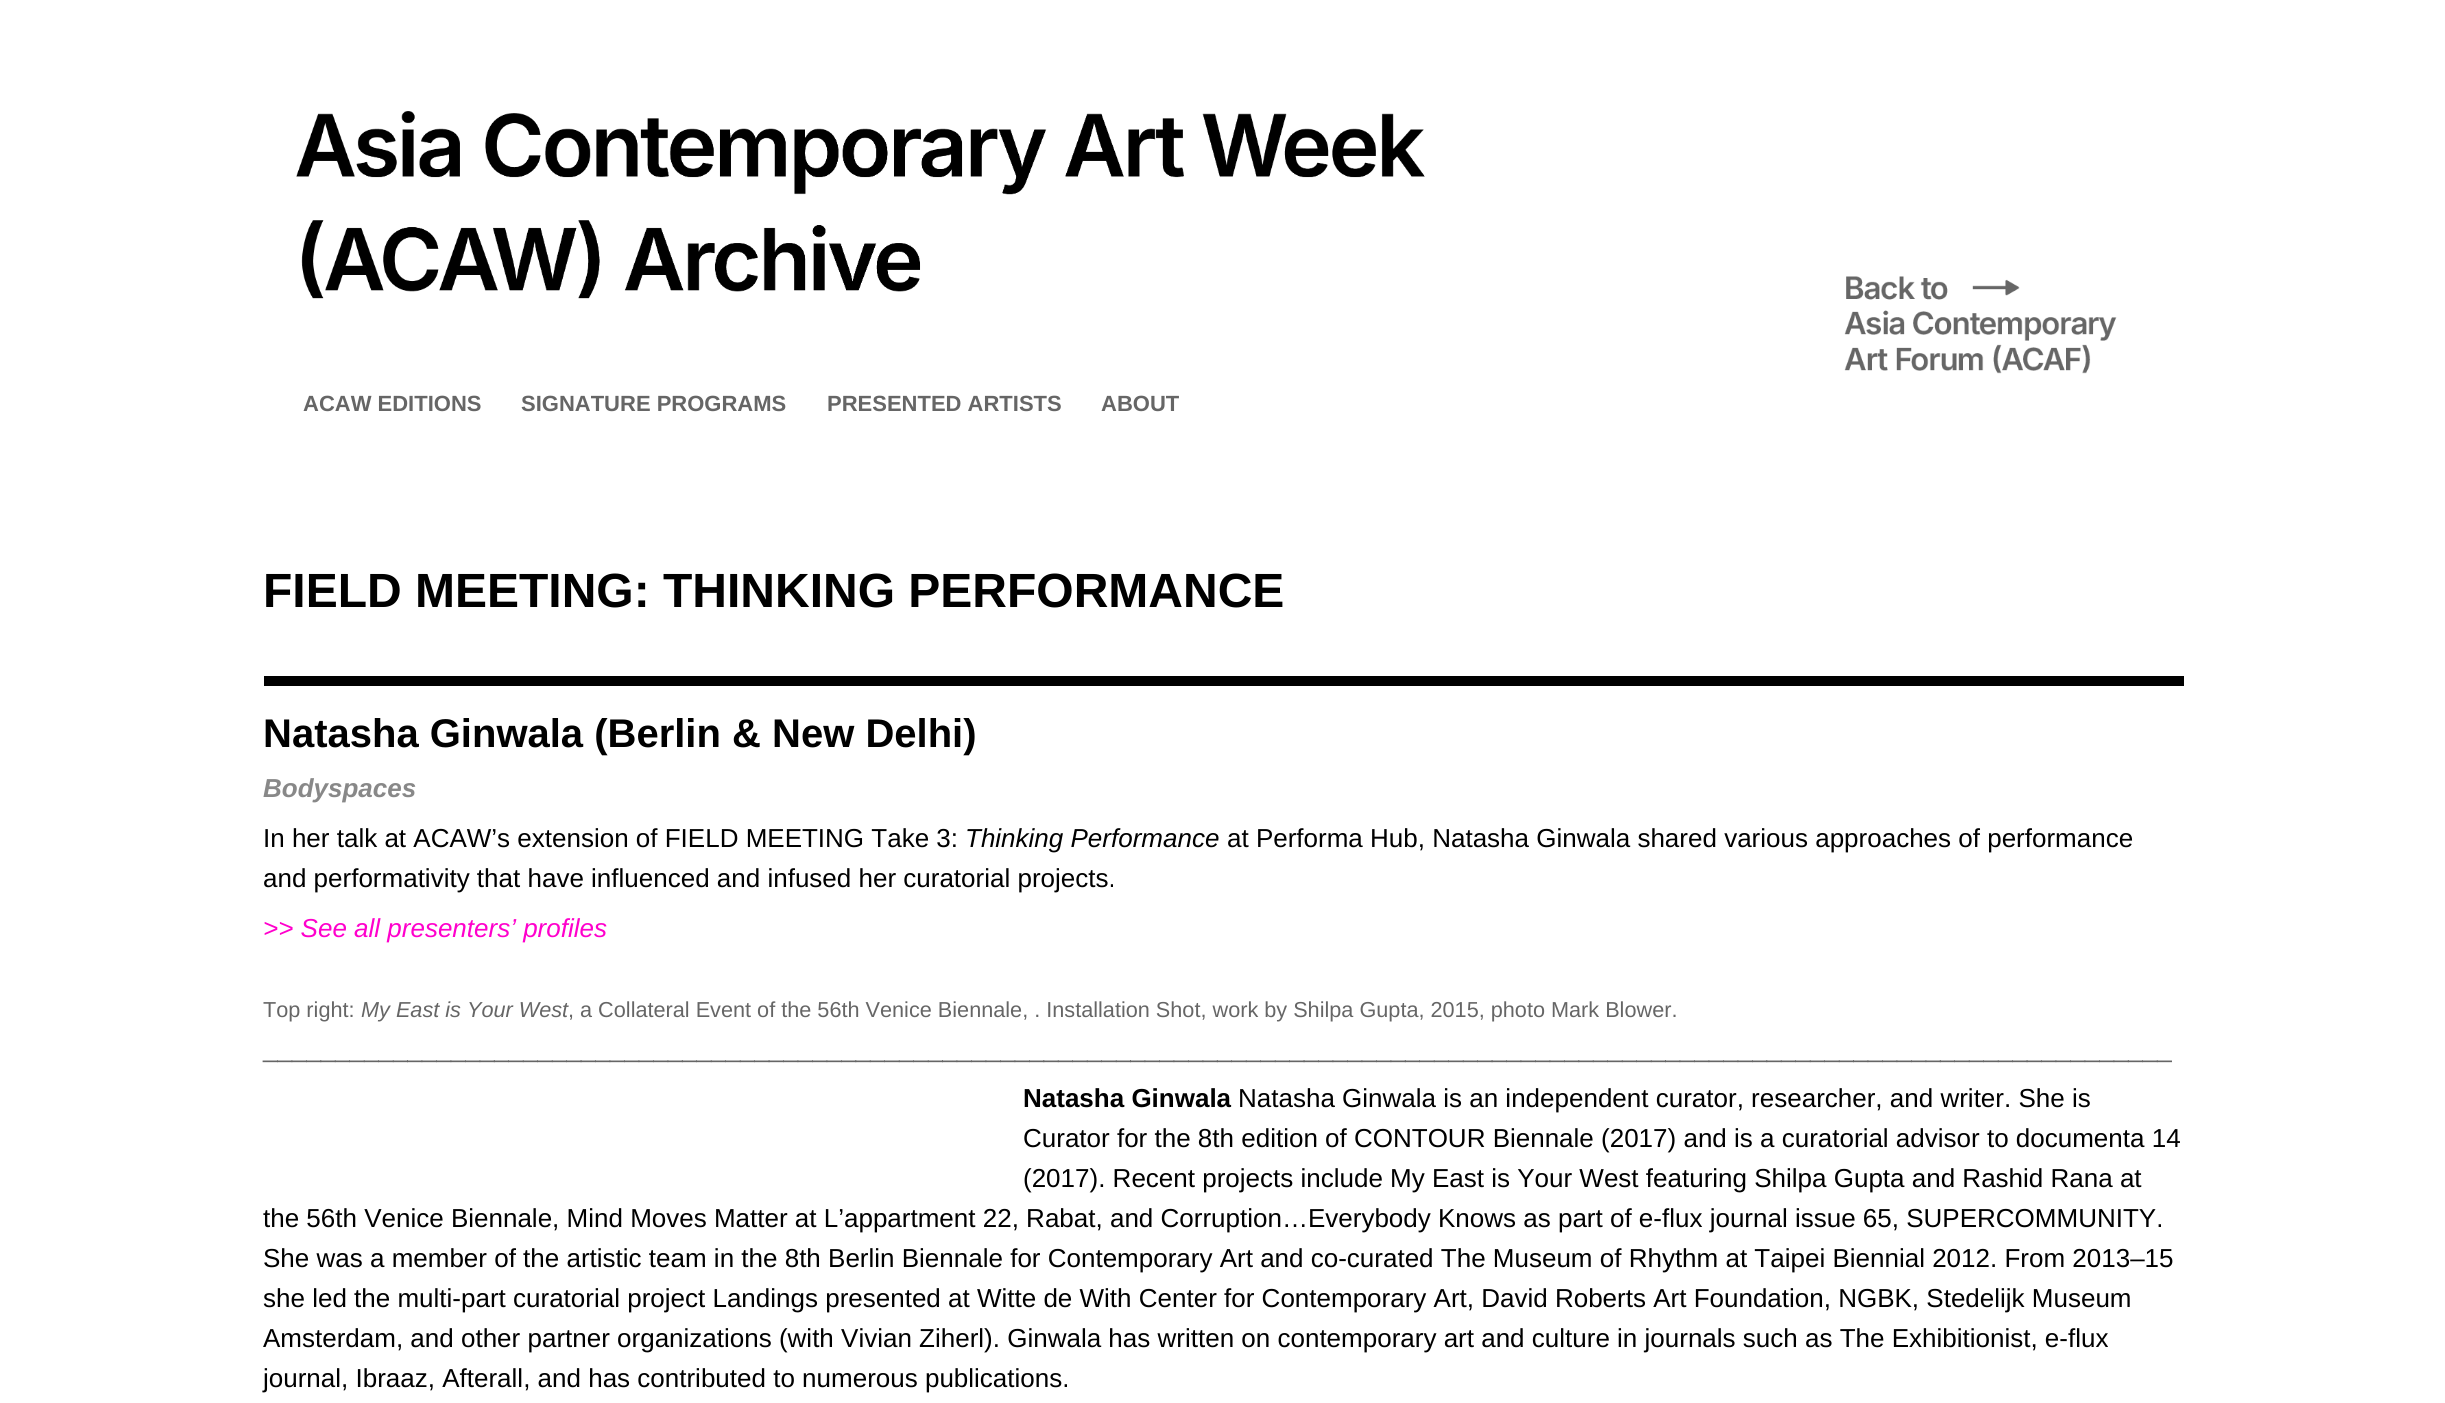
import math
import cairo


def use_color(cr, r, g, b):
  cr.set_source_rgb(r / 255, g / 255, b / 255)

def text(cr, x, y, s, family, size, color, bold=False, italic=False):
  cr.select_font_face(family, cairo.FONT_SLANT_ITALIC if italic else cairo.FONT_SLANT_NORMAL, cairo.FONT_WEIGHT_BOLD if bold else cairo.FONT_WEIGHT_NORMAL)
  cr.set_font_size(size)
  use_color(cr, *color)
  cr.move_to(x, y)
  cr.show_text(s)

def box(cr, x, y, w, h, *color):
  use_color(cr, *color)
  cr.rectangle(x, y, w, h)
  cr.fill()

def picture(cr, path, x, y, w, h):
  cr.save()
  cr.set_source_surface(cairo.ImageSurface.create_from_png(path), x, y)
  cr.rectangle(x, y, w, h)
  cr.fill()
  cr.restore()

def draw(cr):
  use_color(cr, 255, 255, 255)
  cr.paint()
  picture(cr, "img_01.png", 296, 111, 1129, 188)
  picture(cr, "img_02.png", 1844, 276, 273, 98)
  box(cr, 264, 676, 1920, 10, 0, 0, 0)
  text(cr, 303, 411, "ACAW EDITIONS", "Liberation Sans", 22, (102, 102, 102), bold=True)
  text(cr, 521, 411, "SIGNATURE PROGRAMS", "Liberation Sans", 22, (102, 102, 102), bold=True)
  text(cr, 827, 411, "PRESENTED ARTISTS", "Liberation Sans", 22, (102, 102, 102), bold=True)
  text(cr, 1101, 411, "ABOUT", "Liberation Sans", 22, (102, 102, 102), bold=True)
  text(cr, 263, 607, "FIELD MEETING: THINKING PERFORMANCE", "Liberation Sans", 48, (0, 0, 0), bold=True)
  text(cr, 263, 747, "Natasha Ginwala (Berlin & New Delhi)", "Liberation Sans", 40, (0, 0, 0), bold=True)
  text(cr, 263, 797, "Bodyspaces", "Liberation Sans", 26, (136, 136, 136), bold=True, italic=True)
  text(cr, 263, 847, "In her talk at ACAW’s extension of FIELD MEETING Take 3:", "Liberation Sans", 26, (0, 0, 0))
  text(cr, 965, 847, "Thinking Performance", "Liberation Sans", 26, (0, 0, 0), italic=True)
  text(cr, 1227, 847, "at Performa Hub, Natasha Ginwala shared various approaches of performance", "Liberation Sans", 26, (0, 0, 0))
  text(cr, 263, 887, "and performativity that have influenced and infused her curatorial projects.", "Liberation Sans", 26, (0, 0, 0))
  text(cr, 263, 937, ">> See all presenters’ profiles", "Liberation Sans", 26, (255, 0, 204), italic=True)
  text(cr, 263, 1017, "Top right:", "Liberation Sans", 21.67, (102, 102, 102))
  text(cr, 361, 1017, "My East is Your West", "Liberation Sans", 21.67, (102, 102, 102), italic=True)
  text(cr, 568, 1017, ", a Collateral Event of the 56th Venice Biennale, . Installation Shot, work by Shilpa Gupta, 2015, photo Mark Blower.", "Liberation Sans", 21.67, (102, 102, 102))
  text(cr, 263, 1057, "____________________________________________________________________________________________________________________________________", "Liberation Sans", 26, (102, 102, 102))
  text(cr, 1023, 1107, "Natasha Ginwala", "Liberation Sans", 26, (0, 0, 0), bold=True)
  text(cr, 1238, 1107, "Natasha Ginwala is an independent curator, researcher, and writer. She is", "Liberation Sans", 26, (0, 0, 0))
  text(cr, 1023, 1147, "Curator for the 8th edition of CONTOUR Biennale (2017) and is a curatorial advisor to documenta 14", "Liberation Sans", 26, (0, 0, 0))
  text(cr, 1023, 1187, "(2017). Recent projects include My East is Your West featuring Shilpa Gupta and Rashid Rana at", "Liberation Sans", 26, (0, 0, 0))
  text(cr, 263, 1227, "the 56th Venice Biennale, Mind Moves Matter at L’appartment 22, Rabat, and Corruption…Everybody Knows as part of e-flux journal issue 65, SUPERCOMMUNITY.", "Liberation Sans", 26, (0, 0, 0))
  text(cr, 263, 1267, "She was a member of the artistic team in the 8th Berlin Biennale for Contemporary Art and co-curated The Museum of Rhythm at Taipei Biennial 2012. From 2013–15", "Liberation Sans", 26, (0, 0, 0))
  text(cr, 263, 1307, "she led the multi-part curatorial project Landings presented at Witte de With Center for Contemporary Art, David Roberts Art Foundation, NGBK, Stedelijk Museum", "Liberation Sans", 26, (0, 0, 0))
  text(cr, 263, 1347, "Amsterdam, and other partner organizations (with Vivian Ziherl). Ginwala has written on contemporary art and culture in journals such as The Exhibitionist, e-flux", "Liberation Sans", 26, (0, 0, 0))
  text(cr, 263, 1387, "journal, Ibraaz, Afterall, and has contributed to numerous publications.", "Liberation Sans", 26, (0, 0, 0))


surface = cairo.ImageSurface(cairo.FORMAT_RGB24, 2445, 1403)
cr = cairo.Context(surface)
options = cairo.FontOptions()
options.set_hint_metrics(cairo.HINT_METRICS_OFF)
options.set_hint_style(cairo.HINT_STYLE_NONE)
cr.set_font_options(options)
cr.set_miter_limit(4)
draw(cr)
surface.write_to_png("out.png")
